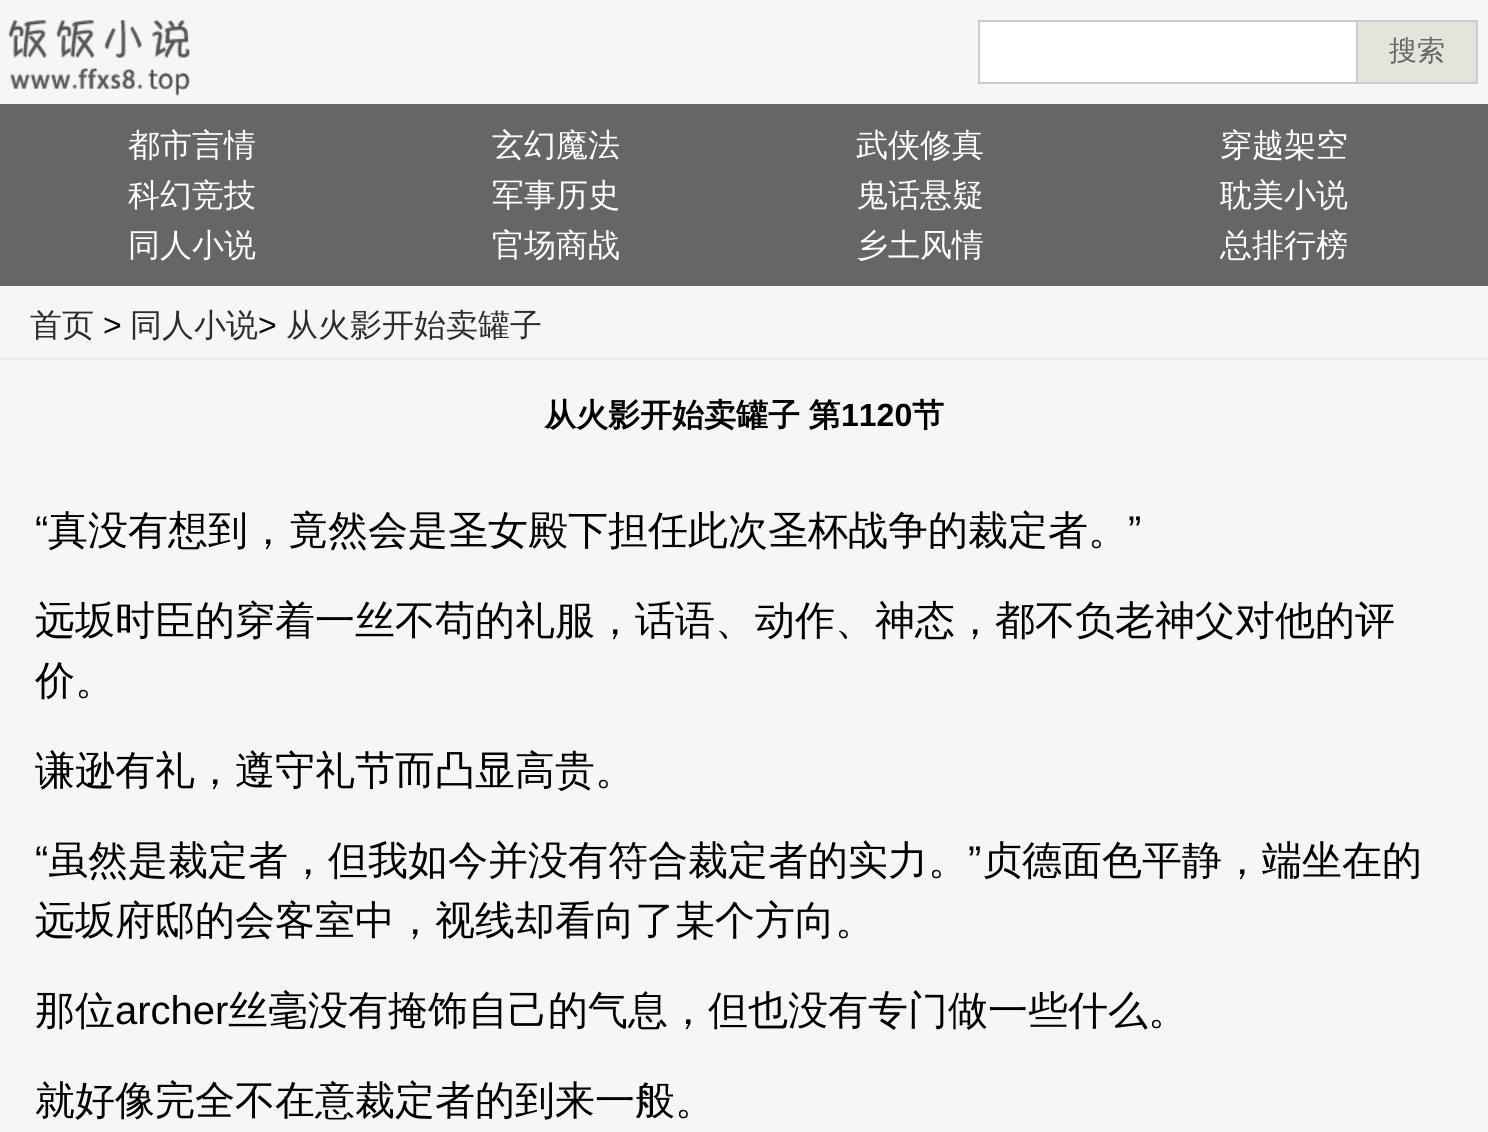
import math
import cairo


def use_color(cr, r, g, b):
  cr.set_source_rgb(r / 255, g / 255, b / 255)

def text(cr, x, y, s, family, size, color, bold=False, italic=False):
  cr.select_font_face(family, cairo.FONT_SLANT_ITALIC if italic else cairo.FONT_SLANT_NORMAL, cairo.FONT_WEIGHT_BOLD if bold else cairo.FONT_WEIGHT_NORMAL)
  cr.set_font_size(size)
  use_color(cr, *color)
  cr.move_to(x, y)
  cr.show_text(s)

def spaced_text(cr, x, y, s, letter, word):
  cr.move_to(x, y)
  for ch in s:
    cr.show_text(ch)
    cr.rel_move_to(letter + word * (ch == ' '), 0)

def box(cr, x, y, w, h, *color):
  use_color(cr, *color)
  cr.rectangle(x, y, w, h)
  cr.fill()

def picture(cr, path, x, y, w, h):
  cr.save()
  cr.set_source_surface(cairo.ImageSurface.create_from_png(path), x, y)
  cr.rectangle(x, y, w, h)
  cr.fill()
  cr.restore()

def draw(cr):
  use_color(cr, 246, 246, 246)
  cr.paint()
  picture(cr, "img_01.png", 8, 20, 182, 76)
  use_color(cr, 255, 255, 255)
  cr.rectangle(979, 21, 378, 62)
  cr.fill_preserve()
  use_color(cr, 204, 204, 204)
  cr.stroke()
  box(cr, 1358, 22, 118, 60, 229, 228, 219)
  box(cr, 1358, 20, 120, 2, 204, 204, 204)
  box(cr, 1476, 20, 2, 64, 204, 204, 204)
  box(cr, 1358, 82, 120, 2, 204, 204, 204)
  box(cr, 0, 104, 1488, 182, 102, 102, 102)
  box(cr, 0, 358, 1488, 2, 241, 235, 235)
  text(cr, 1389, 60, "搜索", "WenQuanYi Zen Hei Medium", 28, (102, 102, 102))
  text(cr, 128, 156, "都市言情", "WenQuanYi Zen Hei Medium", 32, (255, 255, 255))
  text(cr, 492, 156, "玄幻魔法", "WenQuanYi Zen Hei Medium", 32, (255, 255, 255))
  text(cr, 856, 156, "武侠修真", "WenQuanYi Zen Hei Medium", 32, (255, 255, 255))
  text(cr, 1220, 156, "穿越架空", "WenQuanYi Zen Hei Medium", 32, (255, 255, 255))
  text(cr, 128, 206, "科幻竞技", "WenQuanYi Zen Hei Medium", 32, (255, 255, 255))
  text(cr, 492, 206, "军事历史", "WenQuanYi Zen Hei Medium", 32, (255, 255, 255))
  text(cr, 856, 206, "鬼话悬疑", "WenQuanYi Zen Hei Medium", 32, (255, 255, 255))
  text(cr, 1220, 206, "耽美小说", "WenQuanYi Zen Hei Medium", 32, (255, 255, 255))
  text(cr, 128, 256, "同人小说", "WenQuanYi Zen Hei Medium", 32, (255, 255, 255))
  text(cr, 492, 256, "官场商战", "WenQuanYi Zen Hei Medium", 32, (255, 255, 255))
  text(cr, 856, 256, "乡土风情", "WenQuanYi Zen Hei Medium", 32, (255, 255, 255))
  text(cr, 1220, 256, "总排行榜", "WenQuanYi Zen Hei Medium", 32, (255, 255, 255))
  text(cr, 30, 336, "首页", "WenQuanYi Zen Hei Medium", 32, (43, 46, 49))
  text(cr, 103, 336, ">", "Liberation Sans", 32, (0, 0, 0))
  text(cr, 130, 336, "同人小说", "WenQuanYi Zen Hei Medium", 32, (43, 46, 49))
  text(cr, 258, 336, ">", "Liberation Sans", 32, (0, 0, 0))
  text(cr, 286, 336, "从火影开始卖罐子", "WenQuanYi Zen Hei Medium", 32, (43, 46, 49))
  cr.select_font_face("WenQuanYi Zen Hei", cairo.FONT_SLANT_NORMAL, cairo.FONT_WEIGHT_BOLD)
  use_color(cr, 0, 0, 0)
  spaced_text(cr, 544, 426, "从火影开始卖罐子 第", 0, -1)
  text(cr, 841, 426, "1120", "Liberation Sans", 32, (0, 0, 0), bold=True)
  text(cr, 912, 426, "节", "WenQuanYi Zen Hei", 32, (0, 0, 0), bold=True)
  text(cr, 35, 544, "“", "Liberation Sans", 40, (0, 0, 0))
  text(cr, 48, 544, "真没有想到，竟然会是圣女殿下担任此次圣杯战争的裁定者。", "WenQuanYi Zen Hei Medium", 40, (0, 0, 0))
  text(cr, 1128, 544, "”", "Liberation Sans", 40, (0, 0, 0))
  text(cr, 35, 634, "远坂时臣的穿着一丝不苟的礼服，话语、动作、神态，都不负老神父对他的评", "WenQuanYi Zen Hei Medium", 40, (0, 0, 0))
  text(cr, 35, 694, "价。", "WenQuanYi Zen Hei Medium", 40, (0, 0, 0))
  text(cr, 35, 784, "谦逊有礼，遵守礼节而凸显高贵。", "WenQuanYi Zen Hei Medium", 40, (0, 0, 0))
  text(cr, 35, 874, "“", "Liberation Sans", 40, (0, 0, 0))
  text(cr, 48, 874, "虽然是裁定者，但我如今并没有符合裁定者的实力。", "WenQuanYi Zen Hei Medium", 40, (0, 0, 0))
  text(cr, 968, 874, "”", "Liberation Sans", 40, (0, 0, 0))
  text(cr, 982, 874, "贞德面色平静，端坐在的", "WenQuanYi Zen Hei Medium", 40, (0, 0, 0))
  text(cr, 35, 934, "远坂府邸的会客室中，视线却看向了某个方向。", "WenQuanYi Zen Hei Medium", 40, (0, 0, 0))
  text(cr, 35, 1024, "那位", "WenQuanYi Zen Hei Medium", 40, (0, 0, 0))
  text(cr, 115, 1024, "archer", "Liberation Sans", 40, (0, 0, 0))
  text(cr, 228, 1024, "丝毫没有掩饰自己的气息，但也没有专门做一些什么。", "WenQuanYi Zen Hei Medium", 40, (0, 0, 0))
  text(cr, 35, 1114, "就好像完全不在意裁定者的到来一般。", "WenQuanYi Zen Hei Medium", 40, (0, 0, 0))


surface = cairo.ImageSurface(cairo.FORMAT_RGB24, 1488, 1132)
cr = cairo.Context(surface)
options = cairo.FontOptions()
options.set_hint_metrics(cairo.HINT_METRICS_OFF)
options.set_hint_style(cairo.HINT_STYLE_NONE)
cr.set_font_options(options)
cr.set_miter_limit(4)
draw(cr)
surface.write_to_png("out.png")
